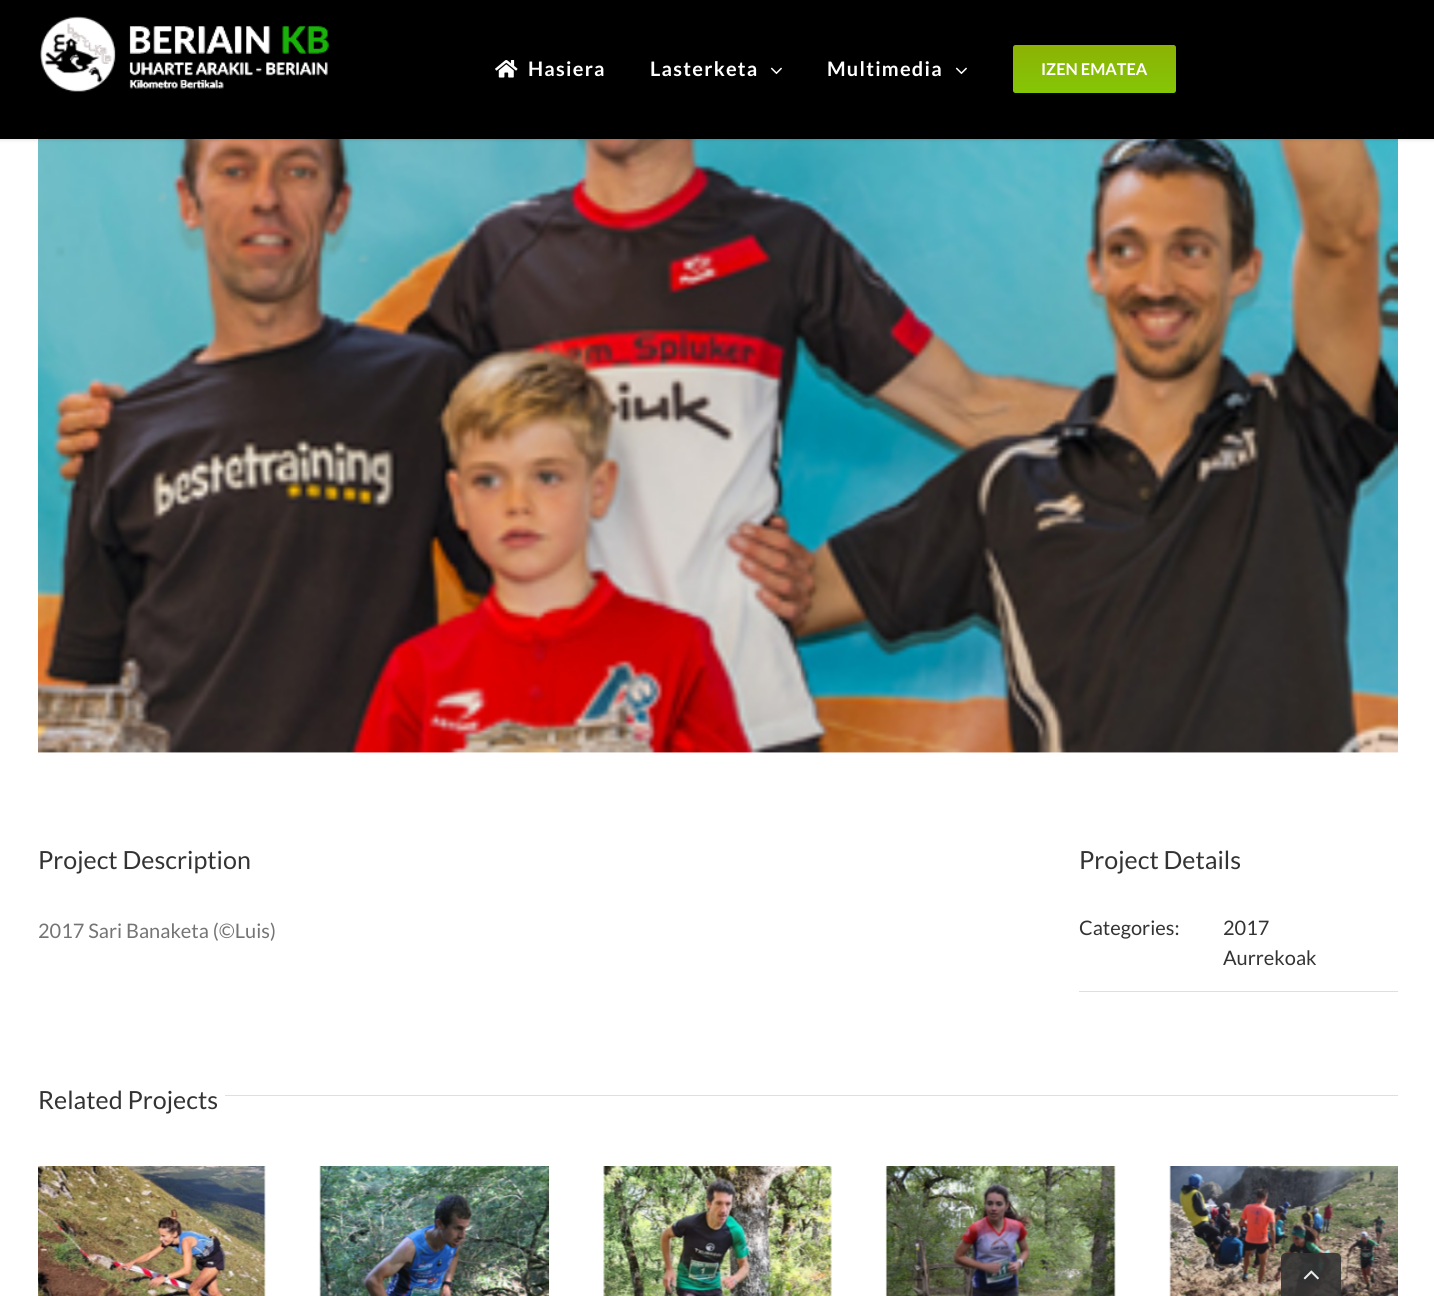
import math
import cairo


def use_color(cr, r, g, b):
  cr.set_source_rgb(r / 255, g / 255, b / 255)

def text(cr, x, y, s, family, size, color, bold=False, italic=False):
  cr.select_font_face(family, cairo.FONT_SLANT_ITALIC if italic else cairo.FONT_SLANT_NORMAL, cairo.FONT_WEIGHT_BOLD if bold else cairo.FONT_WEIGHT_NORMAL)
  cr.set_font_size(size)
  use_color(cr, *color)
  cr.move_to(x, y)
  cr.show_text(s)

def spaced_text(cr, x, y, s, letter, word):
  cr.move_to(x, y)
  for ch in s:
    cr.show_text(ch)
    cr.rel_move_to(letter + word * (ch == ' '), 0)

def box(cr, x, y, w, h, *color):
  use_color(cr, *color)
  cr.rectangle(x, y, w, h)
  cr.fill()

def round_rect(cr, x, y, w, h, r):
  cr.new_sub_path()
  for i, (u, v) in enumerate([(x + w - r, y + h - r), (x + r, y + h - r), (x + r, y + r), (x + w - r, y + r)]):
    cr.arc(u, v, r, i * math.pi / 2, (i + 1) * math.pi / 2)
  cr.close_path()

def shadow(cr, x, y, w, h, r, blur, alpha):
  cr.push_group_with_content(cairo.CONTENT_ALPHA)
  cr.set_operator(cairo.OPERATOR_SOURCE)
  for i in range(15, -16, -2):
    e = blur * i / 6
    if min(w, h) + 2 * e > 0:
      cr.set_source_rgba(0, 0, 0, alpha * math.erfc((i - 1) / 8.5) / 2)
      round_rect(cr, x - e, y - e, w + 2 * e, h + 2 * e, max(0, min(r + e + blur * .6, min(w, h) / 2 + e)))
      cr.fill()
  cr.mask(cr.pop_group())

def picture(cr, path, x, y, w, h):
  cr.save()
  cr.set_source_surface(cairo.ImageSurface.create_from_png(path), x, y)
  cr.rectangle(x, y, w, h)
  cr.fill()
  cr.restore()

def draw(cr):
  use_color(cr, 255, 255, 255)
  cr.paint()
  picture(cr, "img_04.png", 38, 139, 1360, 614)
  use_color(cr, 0, 0, 0)
  shadow(cr, 0, 1, 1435, 139, 0, 2, 0.12)
  box(cr, 0, 0, 1434, 139, 0, 0, 0)
  picture(cr, "img_01.png", 40, 16, 289, 76)
  picture(cr, "img_02.png", 495, 60, 23, 18)
  picture(cr, "img_03.png", 770, 67, 12, 8)
  picture(cr, "img_03.png", 955, 67, 12, 8)
  gradient = cairo.LinearGradient(1094, 45, 1094, 93)
  gradient.add_color_stop_rgba(0, 0.549, 0.698, 0.02, 1)
  gradient.add_color_stop_rgba(1, 0.522, 0.776, 0.024, 1)
  cr.set_source(gradient)
  round_rect(cr, 1013, 45, 163, 48, 2.5)
  cr.fill()
  box(cr, 1079, 991, 319, 1, 224, 222, 222)
  box(cr, 225, 1095, 1173, 1, 224, 222, 222)
  picture(cr, "img_05.png", 38, 1166, 228, 130)
  picture(cr, "img_06.png", 319, 1166, 231, 130)
  picture(cr, "img_07.png", 603, 1166, 229, 130)
  picture(cr, "img_08.png", 885, 1166, 231, 130)
  picture(cr, "img_09.png", 1169, 1166, 229, 130)
  cr.set_source_rgba(0.2, 0.2, 0.2, 0.9)
  cr.new_path()
  cr.move_to(1286, 1253)
  cr.line_to(1336, 1253)
  cr.curve_to(1339, 1253, 1341, 1255, 1341, 1258)
  cr.line_to(1341, 1296)
  cr.line_to(1281, 1296)
  cr.line_to(1281, 1258)
  cr.curve_to(1281, 1255, 1283, 1253, 1286, 1253)
  cr.close_path()
  cr.fill()
  picture(cr, "img_10.png", 1303, 1270, 16, 10)
  cr.select_font_face("Lato", cairo.FONT_SLANT_NORMAL, cairo.FONT_WEIGHT_BOLD)
  cr.set_font_size(20)
  use_color(cr, 255, 255, 255)
  spaced_text(cr, 528, 76, "Hasiera", 1.25, 0)
  spaced_text(cr, 650, 76, "Lasterketa", 1.25, 0)
  spaced_text(cr, 827, 76, "Multimedia", 1.25, 0)
  text(cr, 1041, 75, "IZEN EMATEA", "Lato", 16.25, (255, 255, 255), bold=True)
  text(cr, 38, 869, "Project Description", "Lato", 25, (51, 51, 51))
  text(cr, 38, 938, "2017 Sari Banaketa (©Luis)", "Lato", 20, (116, 116, 116))
  text(cr, 1079, 869, "Project Details", "Lato", 25, (51, 51, 51))
  text(cr, 1079, 935, "Categories:", "Lato", 20, (51, 51, 51))
  text(cr, 1223, 935, "2017", "Lato", 20, (51, 51, 51))
  text(cr, 1223, 965, "Aurrekoak", "Lato", 20, (51, 51, 51))
  text(cr, 38, 1109, "Related Projects", "Lato", 25, (51, 51, 51))


surface = cairo.ImageSurface(cairo.FORMAT_RGB24, 1434, 1296)
cr = cairo.Context(surface)
options = cairo.FontOptions()
options.set_hint_metrics(cairo.HINT_METRICS_OFF)
options.set_hint_style(cairo.HINT_STYLE_NONE)
cr.set_font_options(options)
cr.set_miter_limit(4)
draw(cr)
surface.write_to_png("out.png")
